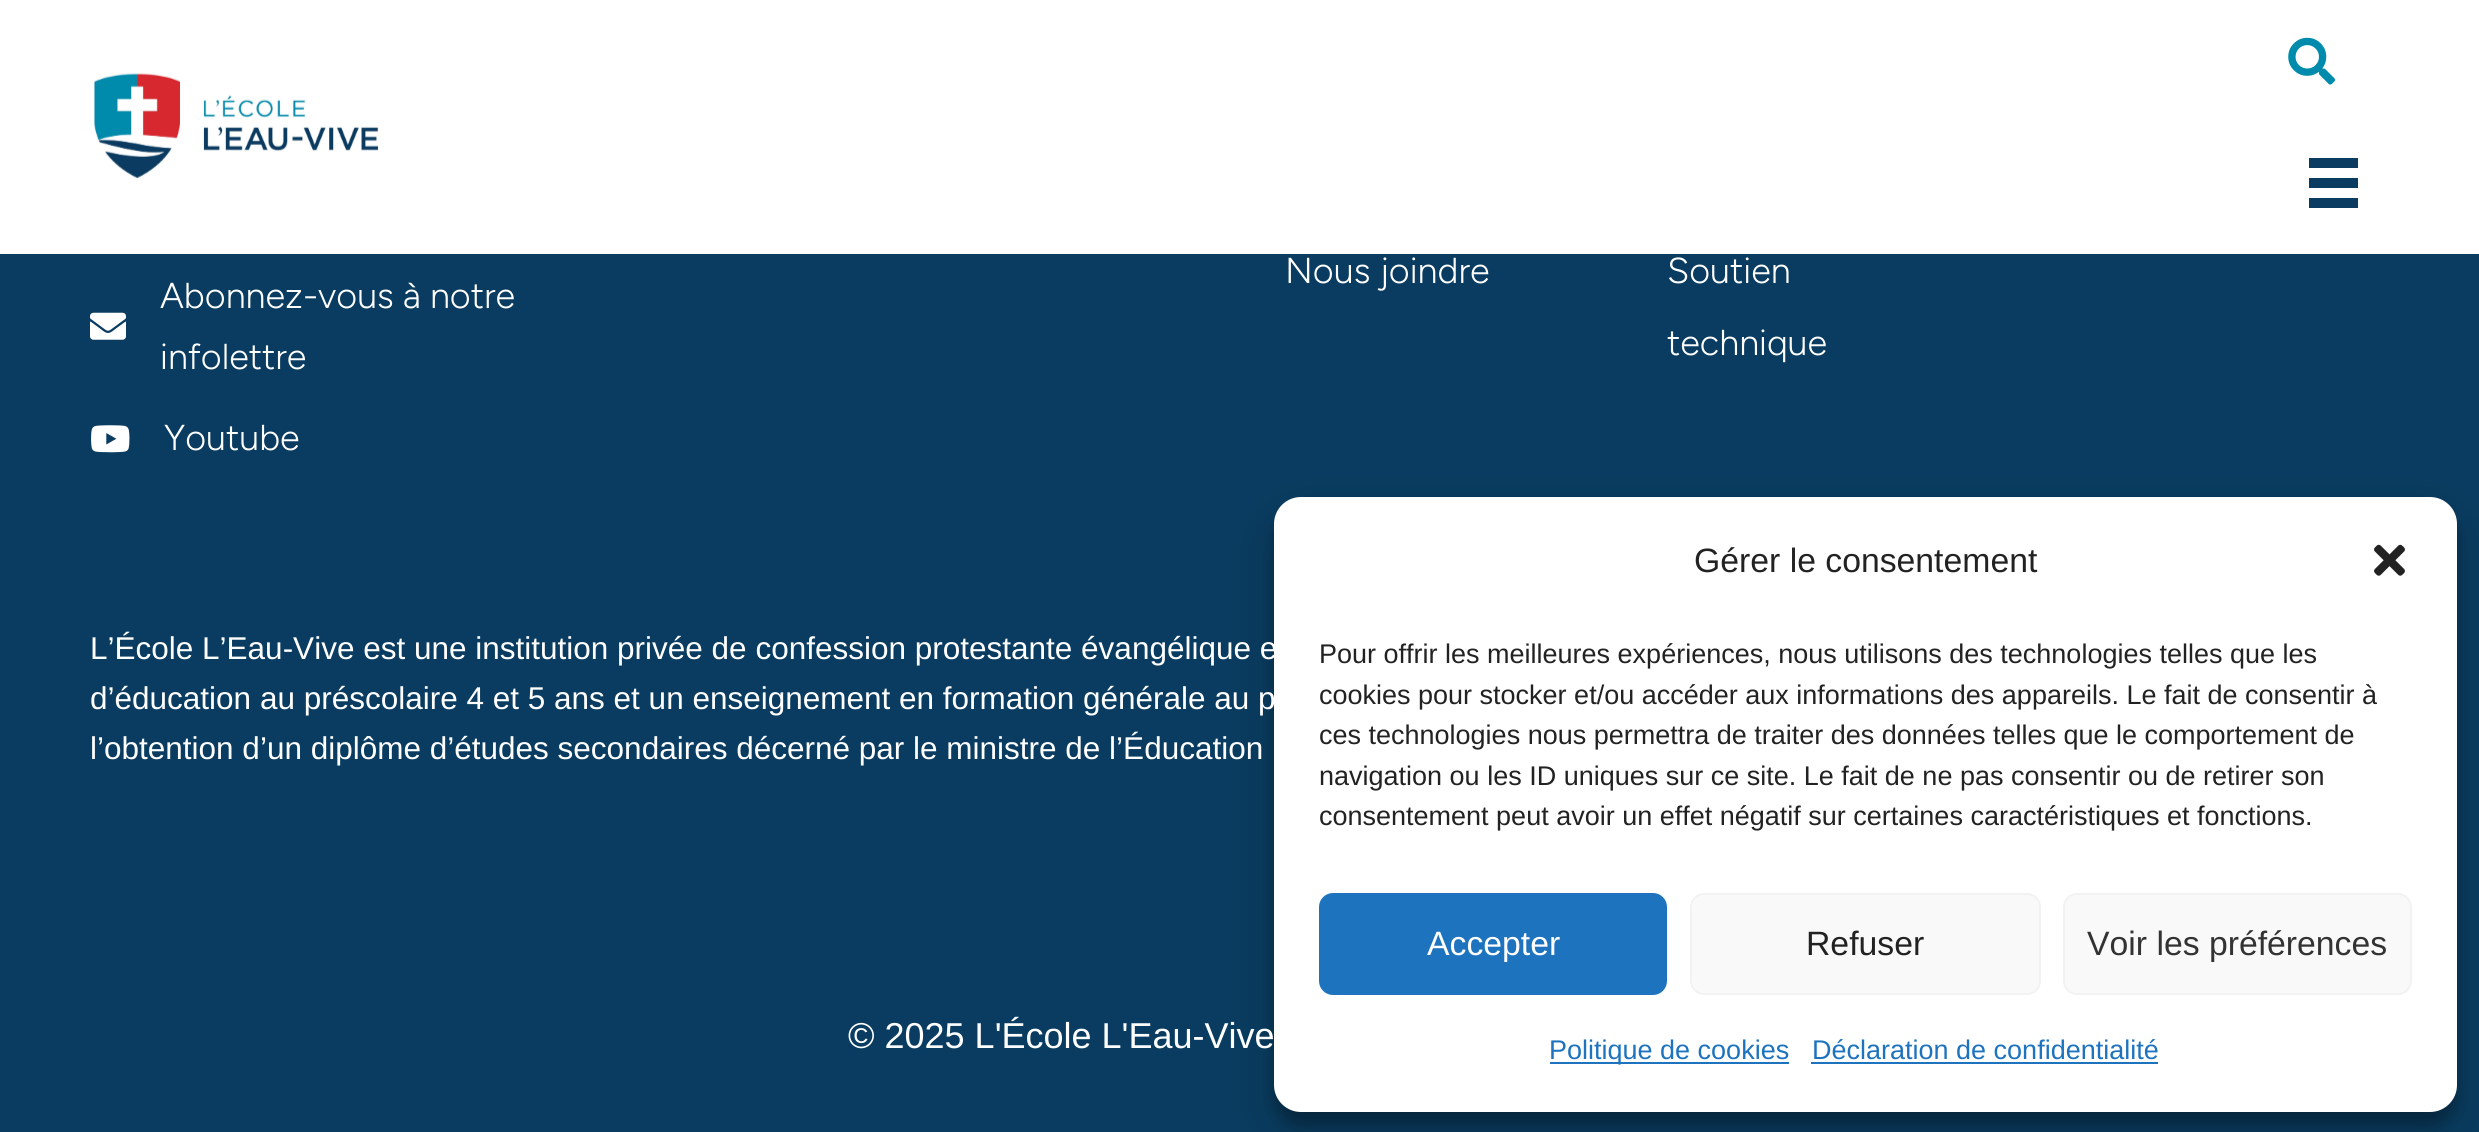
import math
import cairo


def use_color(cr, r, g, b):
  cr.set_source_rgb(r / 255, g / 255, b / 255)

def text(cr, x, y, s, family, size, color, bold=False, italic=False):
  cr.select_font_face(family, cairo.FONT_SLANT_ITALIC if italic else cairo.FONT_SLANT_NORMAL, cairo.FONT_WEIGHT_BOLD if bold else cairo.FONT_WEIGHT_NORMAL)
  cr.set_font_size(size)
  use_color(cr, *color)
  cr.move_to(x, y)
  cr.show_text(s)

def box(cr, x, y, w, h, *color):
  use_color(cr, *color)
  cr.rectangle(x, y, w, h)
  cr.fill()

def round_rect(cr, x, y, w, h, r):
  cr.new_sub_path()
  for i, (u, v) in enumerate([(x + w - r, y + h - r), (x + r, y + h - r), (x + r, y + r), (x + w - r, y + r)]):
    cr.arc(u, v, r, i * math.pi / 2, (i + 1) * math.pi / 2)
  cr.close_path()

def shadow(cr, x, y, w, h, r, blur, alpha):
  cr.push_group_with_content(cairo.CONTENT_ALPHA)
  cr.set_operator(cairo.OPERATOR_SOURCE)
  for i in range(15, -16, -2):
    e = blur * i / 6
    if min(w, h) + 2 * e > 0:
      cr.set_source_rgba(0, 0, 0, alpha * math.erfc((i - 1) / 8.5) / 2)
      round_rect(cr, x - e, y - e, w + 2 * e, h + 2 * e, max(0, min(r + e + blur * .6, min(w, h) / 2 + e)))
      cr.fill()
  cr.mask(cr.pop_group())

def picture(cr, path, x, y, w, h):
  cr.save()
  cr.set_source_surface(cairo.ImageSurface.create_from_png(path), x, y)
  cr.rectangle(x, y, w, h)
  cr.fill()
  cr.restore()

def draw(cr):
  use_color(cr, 9, 60, 96)
  cr.paint()
  box(cr, 0, 0, 2479, 254, 255, 255, 255)
  picture(cr, "img_01.png", 93, 73, 285, 106)
  picture(cr, "img_02.png", 2288, 37, 47, 48)
  box(cr, 2309, 158, 49, 10, 9, 60, 96)
  box(cr, 2309, 178, 49, 10, 9, 60, 96)
  box(cr, 2309, 198, 49, 10, 9, 60, 96)
  picture(cr, "img_03.png", 90, 312, 36, 28)
  picture(cr, "img_04.png", 91, 425, 39, 28)
  use_color(cr, 0, 0, 0)
  shadow(cr, 1274, 511, 1183, 614, 27, 7, 0.23)
  shadow(cr, 1274, 520, 1183, 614, 27, 22.5, 0.19)
  use_color(cr, 255, 255, 255)
  round_rect(cr, 1274, 497, 1183, 615, 27)
  cr.fill()
  picture(cr, "img_05.png", 2374, 544, 31, 32)
  use_color(cr, 30, 115, 190)
  round_rect(cr, 1320, 894, 346, 100, 13)
  cr.fill_preserve()
  cr.stroke()
  use_color(cr, 249, 249, 249)
  round_rect(cr, 1691, 894, 349, 100, 13)
  cr.fill_preserve()
  use_color(cr, 242, 242, 242)
  cr.stroke()
  use_color(cr, 249, 249, 249)
  round_rect(cr, 2064, 894, 347, 100, 13)
  cr.fill_preserve()
  use_color(cr, 242, 242, 242)
  cr.stroke()
  box(cr, 1550, 1062, 239, 2, 30, 115, 190)
  box(cr, 1811, 1062, 347, 2, 30, 115, 190)
  text(cr, 160, 308, "Abonnez-vous à notre", "Figtree Light", 36, (255, 255, 255))
  text(cr, 160, 369, "infolettre", "Figtree Light", 36, (255, 255, 255))
  text(cr, 164, 450, "Youtube", "Figtree Light", 36, (255, 255, 255))
  text(cr, 1285, 283, "Nous joindre", "Figtree Light", 36, (255, 255, 255))
  text(cr, 1667, 283, "Soutien", "Figtree Light", 36, (255, 255, 255))
  text(cr, 1667, 355, "technique", "Figtree Light", 36, (255, 255, 255))
  text(cr, 90, 659, "L’École L’Eau-Vive est une institution privée de confession protestante évangélique e", "Liberation Sans", 31.5, (255, 255, 255))
  text(cr, 90, 709, "d’éducation au préscolaire 4 et 5 ans et un enseignement en formation générale au p", "Liberation Sans", 31.5, (255, 255, 255))
  text(cr, 90, 759, "l’obtention d’un diplôme d’études secondaires décerné par le ministre de l’Éducation", "Liberation Sans", 31.5, (255, 255, 255))
  text(cr, 848, 1048, "© 2025 L'École L'Eau-Vive", "Liberation Sans", 36, (255, 255, 255))
  text(cr, 1694, 572, "Gérer le consentement", "Liberation Sans", 33.75, (34, 34, 34))
  text(cr, 1319, 663, "Pour offrir les meilleures expériences, nous utilisons des technologies telles que les", "Liberation Sans", 27, (34, 34, 34))
  text(cr, 1319, 704, "cookies pour stocker et/ou accéder aux informations des appareils. Le fait de consentir à", "Liberation Sans", 27, (34, 34, 34))
  text(cr, 1319, 744, "ces technologies nous permettra de traiter des données telles que le comportement de", "Liberation Sans", 27, (34, 34, 34))
  text(cr, 1319, 785, "navigation ou les ID uniques sur ce site. Le fait de ne pas consentir ou de retirer son", "Liberation Sans", 27, (34, 34, 34))
  text(cr, 1319, 825, "consentement peut avoir un effet négatif sur certaines caractéristiques et fonctions.", "Liberation Sans", 27, (34, 34, 34))
  text(cr, 1427, 955, "Accepter", "Liberation Sans", 33.75, (255, 255, 255))
  text(cr, 1806, 955, "Refuser", "Liberation Sans", 33.75, (34, 34, 34))
  text(cr, 2087, 955, "Voir les préférences", "Liberation Sans", 33.75, (51, 51, 51))
  text(cr, 1549, 1059, "Politique de cookies", "Liberation Sans", 27, (30, 115, 190))
  text(cr, 1812, 1059, "Déclaration de confidentialité", "Liberation Sans", 27, (30, 115, 190))


surface = cairo.ImageSurface(cairo.FORMAT_RGB24, 2479, 1132)
cr = cairo.Context(surface)
options = cairo.FontOptions()
options.set_hint_metrics(cairo.HINT_METRICS_OFF)
options.set_hint_style(cairo.HINT_STYLE_NONE)
cr.set_font_options(options)
cr.set_miter_limit(4)
draw(cr)
surface.write_to_png("out.png")
